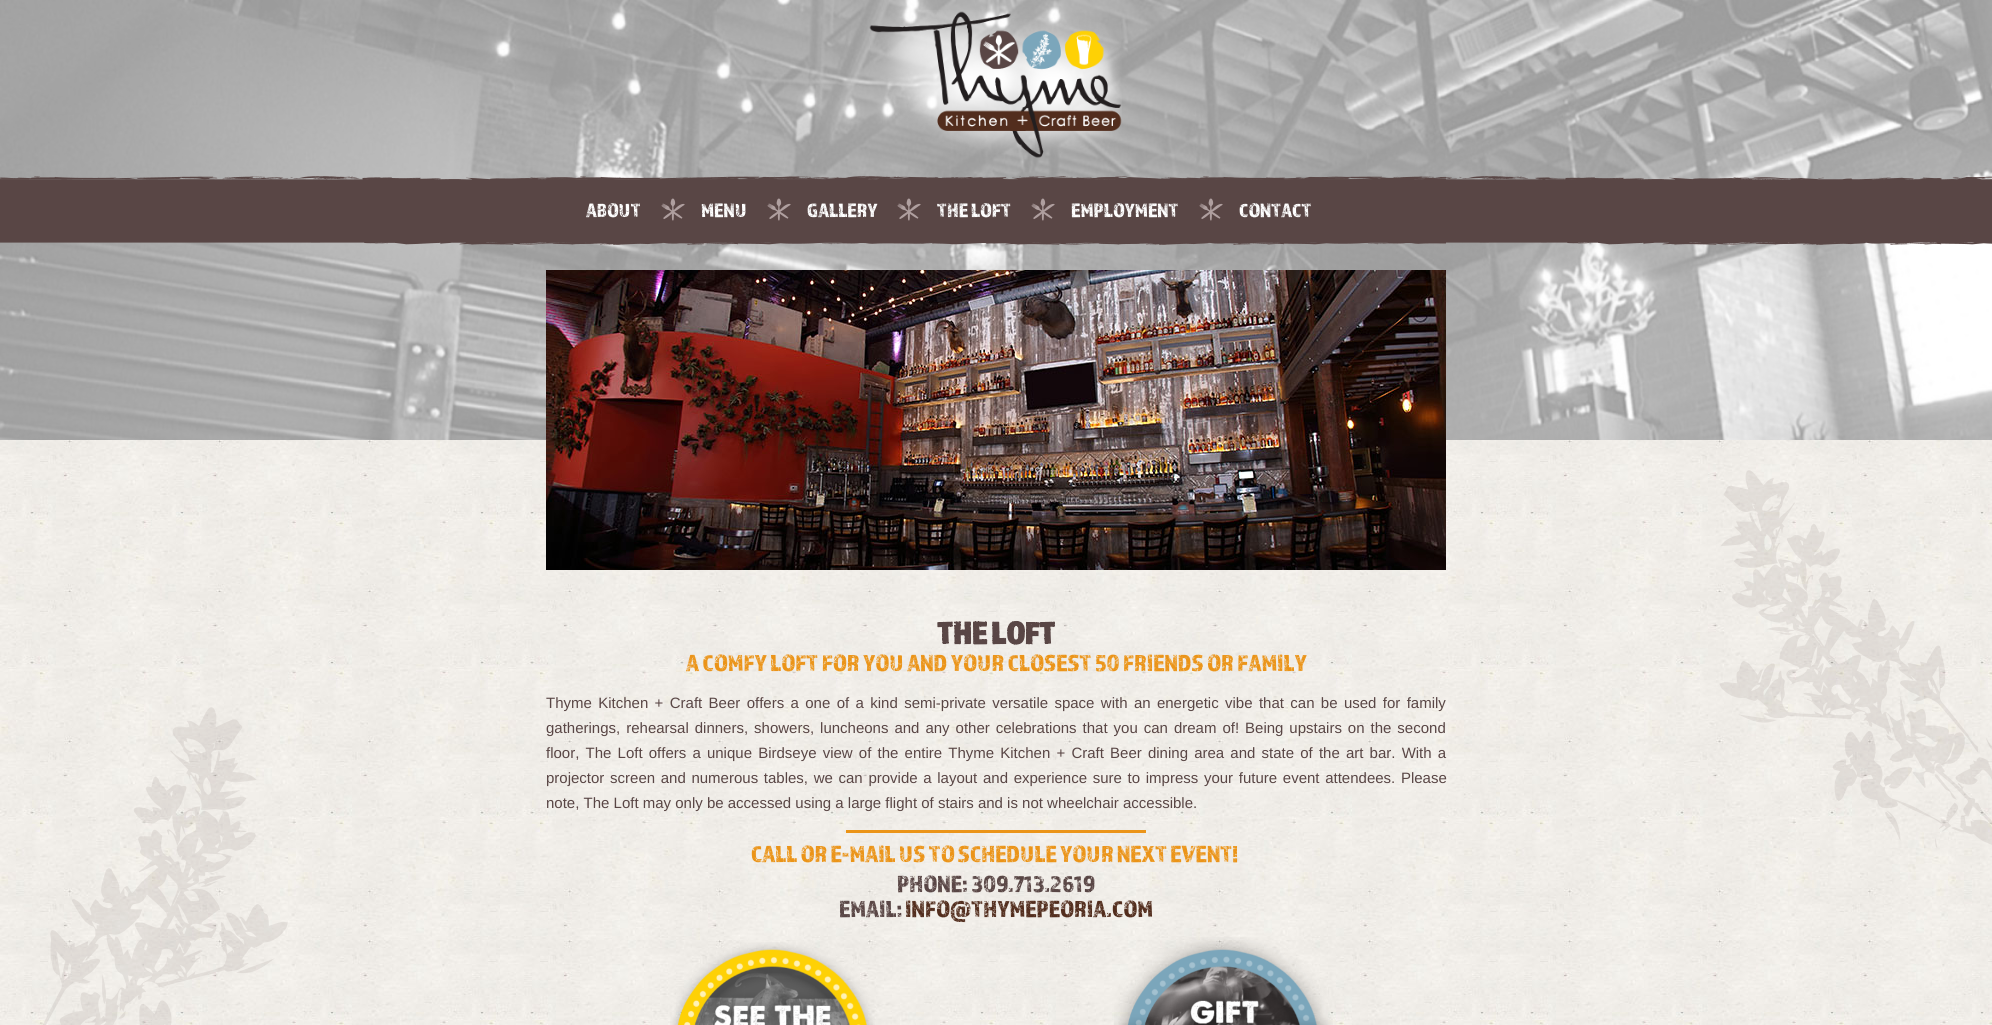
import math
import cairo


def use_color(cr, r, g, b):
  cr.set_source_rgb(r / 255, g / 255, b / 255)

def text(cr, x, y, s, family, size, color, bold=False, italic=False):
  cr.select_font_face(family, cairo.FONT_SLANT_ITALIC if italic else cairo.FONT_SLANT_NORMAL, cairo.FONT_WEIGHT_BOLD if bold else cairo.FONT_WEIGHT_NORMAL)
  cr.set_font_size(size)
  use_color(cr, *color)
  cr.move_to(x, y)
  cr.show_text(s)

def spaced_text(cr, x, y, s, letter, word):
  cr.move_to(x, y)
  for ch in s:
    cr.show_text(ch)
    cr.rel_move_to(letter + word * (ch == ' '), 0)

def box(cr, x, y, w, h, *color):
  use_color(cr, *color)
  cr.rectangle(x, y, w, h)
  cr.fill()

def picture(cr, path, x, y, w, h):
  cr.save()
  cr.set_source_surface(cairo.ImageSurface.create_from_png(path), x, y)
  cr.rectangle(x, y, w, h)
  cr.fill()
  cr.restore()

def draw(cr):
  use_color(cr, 255, 255, 255)
  cr.paint()
  picture(cr, "img_01.png", 0, 0, 1992, 440)
  picture(cr, "img_02.png", 869, 10, 253, 148)
  picture(cr, "img_03.png", 0, 176, 1992, 69)
  picture(cr, "img_04.png", 546, 176, 900, 69)
  picture(cr, "img_05.png", 661, 198, 24, 23)
  picture(cr, "img_05.png", 767, 198, 24, 23)
  picture(cr, "img_05.png", 897, 198, 24, 23)
  picture(cr, "img_05.png", 1031, 198, 24, 23)
  picture(cr, "img_05.png", 1199, 198, 24, 23)
  picture(cr, "img_07.png", 0, 440, 1992, 585)
  picture(cr, "img_06.png", 546, 270, 900, 300)
  picture(cr, "img_08.png", 43, 707, 245, 318)
  box(cr, 846, 830, 300, 3, 235, 148, 24)
  picture(cr, "img_09.png", 670, 942, 205, 83)
  picture(cr, "img_10.png", 1114, 937, 219, 88)
  picture(cr, "img_11.png", 1719, 470, 273, 378)
  text(cr, 586, 217, "ABOUT", "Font", 20, (255, 255, 255))
  text(cr, 701, 217, "MENU", "Font", 20, (255, 255, 255))
  text(cr, 807, 217, "GALLERY", "Font", 20, (255, 255, 255))
  text(cr, 937, 217, "THE LOFT", "Font", 20, (255, 255, 255))
  text(cr, 1071, 217, "EMPLOYMENT", "Font", 20, (255, 255, 255))
  text(cr, 1239, 217, "CONTACT", "Font", 20, (255, 255, 255))
  text(cr, 937, 644, "THE LOFT", "Font", 32, (89, 70, 69), bold=True)
  text(cr, 686, 671, "A COMFY LOFT FOR YOU AND YOUR CLOSEST 50 FRIENDS OR FAMILY", "Font", 24, (235, 148, 24))
  cr.select_font_face("Liberation Sans")
  cr.set_font_size(15)
  use_color(cr, 89, 70, 69)
  spaced_text(cr, 546, 708, "Thyme Kitchen + Craft Beer offers a one of a kind semi-private versatile space with an energetic vibe that can be used for family", 0, 2.2)
  spaced_text(cr, 546, 733, "gatherings, rehearsal dinners, showers, luncheons and any other celebrations that you can dream of! Being upstairs on the second", 0, 1.8)
  spaced_text(cr, 546, 758, "floor, The Loft offers a unique Birdseye view of the entire Thyme Kitchen + Craft Beer dining area and state of the art bar. With a", 0, 2)
  spaced_text(cr, 546, 783, "projector screen and numerous tables, we can provide a layout and experience sure to impress your future event attendees. Please", 0, 1.5)
  text(cr, 546, 808, "note, The Loft may only be accessed using a large flight of stairs and is not wheelchair accessible.", "Liberation Sans", 15, (89, 70, 69))
  cr.select_font_face("Font")
  cr.set_font_size(24)
  use_color(cr, 235, 148, 24)
  spaced_text(cr, 751, 862, "CALL OR E-MAIL US TO SCHEDULE YOUR NEXT EVENT!", 0, -0.25)
  text(cr, 897, 892, "PHONE: 309.713.2619", "Font", 24, (89, 70, 69))
  text(cr, 839, 917, "EMAIL:", "Font", 24, (89, 70, 69))
  text(cr, 905, 917, "INFO@THYMEPEORIA.COM", "Font", 24, (82, 45, 29))


surface = cairo.ImageSurface(cairo.FORMAT_RGB24, 1992, 1025)
cr = cairo.Context(surface)
options = cairo.FontOptions()
options.set_hint_metrics(cairo.HINT_METRICS_OFF)
options.set_hint_style(cairo.HINT_STYLE_NONE)
cr.set_font_options(options)
cr.set_miter_limit(4)
draw(cr)
surface.write_to_png("out.png")
